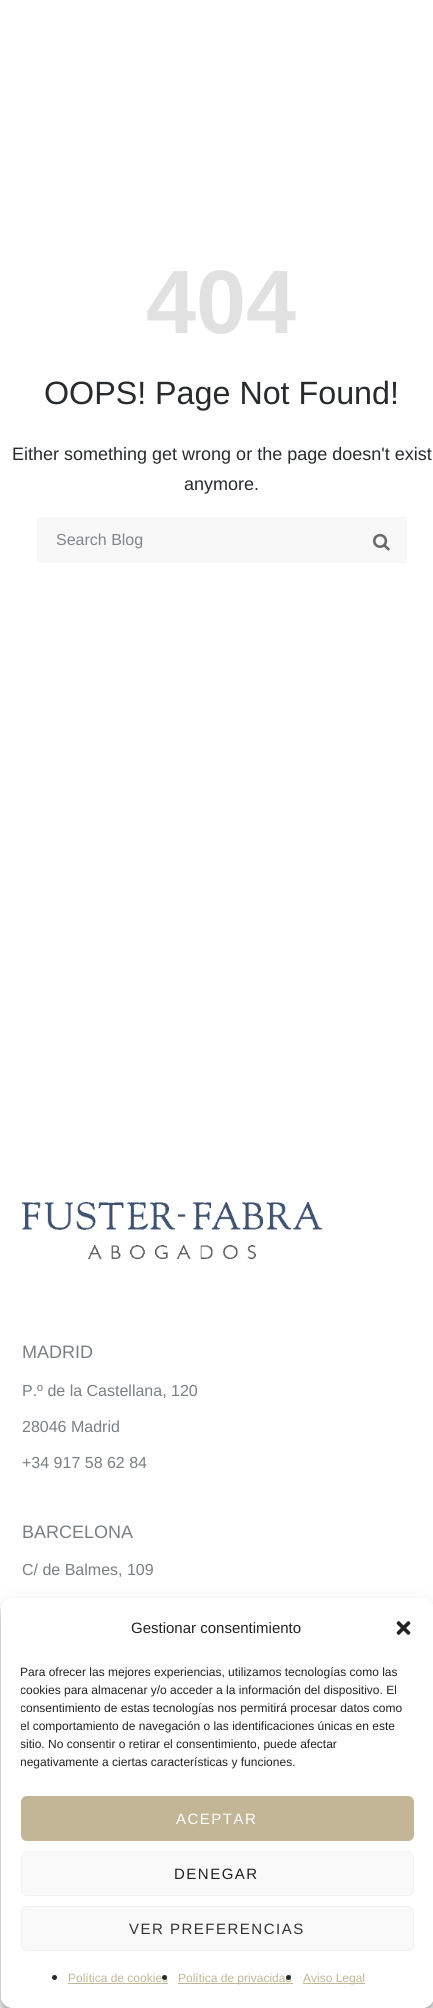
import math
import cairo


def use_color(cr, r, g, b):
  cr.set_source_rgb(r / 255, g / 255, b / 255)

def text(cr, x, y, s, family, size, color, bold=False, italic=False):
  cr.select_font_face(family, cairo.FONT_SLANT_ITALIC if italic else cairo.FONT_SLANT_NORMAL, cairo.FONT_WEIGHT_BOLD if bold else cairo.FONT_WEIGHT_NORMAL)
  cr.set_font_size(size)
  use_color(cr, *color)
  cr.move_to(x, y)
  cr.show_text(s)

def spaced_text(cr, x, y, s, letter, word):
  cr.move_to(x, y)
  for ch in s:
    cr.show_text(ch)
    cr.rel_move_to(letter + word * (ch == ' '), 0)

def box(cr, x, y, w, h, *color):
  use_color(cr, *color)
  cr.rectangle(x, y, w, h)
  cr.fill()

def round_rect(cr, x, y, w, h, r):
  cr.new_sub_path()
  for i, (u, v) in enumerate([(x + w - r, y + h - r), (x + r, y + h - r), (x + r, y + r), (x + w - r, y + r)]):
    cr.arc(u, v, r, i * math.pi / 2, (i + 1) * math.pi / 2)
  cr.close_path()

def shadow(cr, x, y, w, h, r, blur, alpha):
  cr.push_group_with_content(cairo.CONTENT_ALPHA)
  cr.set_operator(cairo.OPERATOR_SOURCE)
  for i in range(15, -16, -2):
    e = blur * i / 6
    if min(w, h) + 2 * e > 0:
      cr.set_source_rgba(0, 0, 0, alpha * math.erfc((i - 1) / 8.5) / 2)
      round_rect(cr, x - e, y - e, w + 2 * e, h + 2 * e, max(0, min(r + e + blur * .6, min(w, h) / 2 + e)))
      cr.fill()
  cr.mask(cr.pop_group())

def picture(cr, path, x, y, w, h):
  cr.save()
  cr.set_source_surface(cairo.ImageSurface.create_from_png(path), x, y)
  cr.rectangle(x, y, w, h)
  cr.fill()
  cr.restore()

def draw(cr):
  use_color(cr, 255, 255, 255)
  cr.paint()
  box(cr, 37, 517, 370, 46, 248, 248, 248)
  picture(cr, "img_01.png", 373, 533, 17, 18)
  picture(cr, "img_02.png", 22, 1202, 300, 57)
  cr.save()
  cr.set_fill_rule(cairo.FILL_RULE_EVEN_ODD)
  cr.new_path()
  cr.move_to(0, 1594)
  cr.line_to(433, 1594)
  cr.line_to(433, 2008)
  cr.line_to(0, 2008)
  cr.close_path()
  cr.move_to(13, 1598)
  cr.line_to(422, 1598)
  cr.curve_to(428.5, 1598, 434, 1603.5, 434, 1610)
  cr.line_to(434, 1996)
  cr.curve_to(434, 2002.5, 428.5, 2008, 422, 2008)
  cr.line_to(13, 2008)
  cr.curve_to(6.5, 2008, 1, 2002.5, 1, 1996)
  cr.line_to(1, 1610)
  cr.curve_to(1, 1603.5, 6.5, 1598, 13, 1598)
  cr.close_path()
  cr.clip()
  use_color(cr, 0, 0, 0)
  shadow(cr, 1, 1604, 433, 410, 12, 3, 0.23)
  cr.restore()
  cr.save()
  cr.set_fill_rule(cairo.FILL_RULE_EVEN_ODD)
  cr.new_path()
  cr.move_to(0, 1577)
  cr.line_to(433, 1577)
  cr.line_to(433, 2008)
  cr.line_to(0, 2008)
  cr.close_path()
  cr.move_to(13, 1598)
  cr.line_to(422, 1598)
  cr.curve_to(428.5, 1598, 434, 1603.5, 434, 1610)
  cr.line_to(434, 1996)
  cr.curve_to(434, 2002.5, 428.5, 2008, 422, 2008)
  cr.line_to(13, 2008)
  cr.curve_to(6.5, 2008, 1, 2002.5, 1, 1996)
  cr.line_to(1, 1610)
  cr.curve_to(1, 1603.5, 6.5, 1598, 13, 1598)
  cr.close_path()
  cr.clip()
  use_color(cr, 0, 0, 0)
  shadow(cr, 1, 1608, 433, 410, 12, 10, 0.19)
  cr.restore()
  use_color(cr, 255, 255, 255)
  round_rect(cr, 1, 1598, 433, 410, 12)
  cr.fill()
  picture(cr, "img_03.png", 396, 1621, 15, 14)
  use_color(cr, 194, 182, 151)
  round_rect(cr, 21.5, 1796.5, 392, 44, 5.5)
  cr.fill_preserve()
  cr.set_line_width(1)
  cr.stroke()
  use_color(cr, 249, 249, 249)
  round_rect(cr, 21.5, 1851.5, 392, 44, 5.5)
  cr.fill_preserve()
  use_color(cr, 242, 242, 242)
  cr.stroke()
  use_color(cr, 249, 249, 249)
  round_rect(cr, 21.5, 1906.5, 392, 44, 5.5)
  cr.fill_preserve()
  use_color(cr, 242, 242, 242)
  cr.stroke()
  use_color(cr, 39, 43, 46)
  cr.arc(54.5, 1977.5, 2.5, 0, 2 * math.pi)
  cr.fill()
  box(cr, 68, 1983, 100, 1, 194, 182, 151)
  box(cr, 178, 1983, 115, 1, 194, 182, 151)
  box(cr, 303, 1983, 62, 1, 194, 182, 151)
  text(cr, 146, 333, "404", "Liberation Sans", 90, (225, 225, 226), bold=True)
  text(cr, 44, 404, "OOPS! Page Not Found!", "Liberation Sans", 32.25, (39, 43, 46))
  text(cr, 12, 460, "Either something get wrong or the page doesn't exist", "Liberation Sans", 18, (39, 43, 46))
  text(cr, 184, 490, "anymore.", "Liberation Sans", 18, (39, 43, 46))
  text(cr, 56, 545, "Search Blog", "Liberation Sans", 16, (128, 133, 139))
  text(cr, 22, 1358, "MADRID", "Liberation Sans", 18, (121, 127, 133))
  text(cr, 22, 1396, "P.º de la Castellana, 120", "Liberation Sans", 16, (121, 127, 133))
  text(cr, 22, 1432, "28046 Madrid", "Liberation Sans", 16, (121, 127, 133))
  text(cr, 22, 1468, "+34 917 58 62 84", "Liberation Sans", 16, (121, 127, 133))
  text(cr, 22, 1538, "BARCELONA", "Liberation Sans", 18, (121, 127, 133))
  text(cr, 22, 1575, "C/ de Balmes, 109", "Liberation Sans", 16, (121, 127, 133))
  text(cr, 131, 1633, "Gestionar consentimiento", "Liberation Sans", 15, (34, 34, 34))
  text(cr, 20, 1676, "Para ofrecer las mejores experiencias, utilizamos tecnologías como las", "Liberation Sans", 12, (34, 34, 34))
  cr.save()
  cr.rectangle(21, 1663, 393, 113)
  cr.clip()
  text(cr, 20, 1694, "cookies para almacenar y/o acceder a la información del dispositivo. El", "Liberation Sans", 12, (34, 34, 34))
  text(cr, 20, 1712, "consentimiento de estas tecnologías nos permitirá procesar datos como", "Liberation Sans", 12, (34, 34, 34))
  text(cr, 20, 1730, "el comportamiento de navegación o las identificaciones únicas en este", "Liberation Sans", 12, (34, 34, 34))
  text(cr, 20, 1748, "sitio. No consentir o retirar el consentimiento, puede afectar", "Liberation Sans", 12, (34, 34, 34))
  text(cr, 20, 1766, "negativamente a ciertas características y funciones.", "Liberation Sans", 12, (34, 34, 34))
  cr.restore()
  cr.set_font_size(15)
  use_color(cr, 255, 255, 255)
  spaced_text(cr, 176, 1824, "ACEPTAR", 1.5, 0)
  use_color(cr, 34, 34, 34)
  spaced_text(cr, 174, 1879, "DENEGAR", 1.5, 0)
  use_color(cr, 51, 51, 51)
  spaced_text(cr, 129, 1934, "VER PREFERENCIAS", 1.5, 0)
  text(cr, 68, 1982, "Política de cookies", "Liberation Sans", 12, (194, 182, 151))
  use_color(cr, 39, 43, 46)
  cr.new_path()
  cr.arc(164.5, 1977.5, 2.5, 0, 2 * math.pi)
  cr.fill()
  text(cr, 178, 1982, "Política de privacidad", "Liberation Sans", 12, (194, 182, 151))
  use_color(cr, 39, 43, 46)
  cr.new_path()
  cr.arc(288.5, 1977.5, 2.5, 0, 2 * math.pi)
  cr.fill()
  text(cr, 303, 1982, "Aviso Legal", "Liberation Sans", 12, (194, 182, 151))


surface = cairo.ImageSurface(cairo.FORMAT_RGB24, 433, 2008)
cr = cairo.Context(surface)
options = cairo.FontOptions()
options.set_hint_metrics(cairo.HINT_METRICS_OFF)
options.set_hint_style(cairo.HINT_STYLE_NONE)
cr.set_font_options(options)
cr.set_miter_limit(4)
draw(cr)
surface.write_to_png("out.png")
